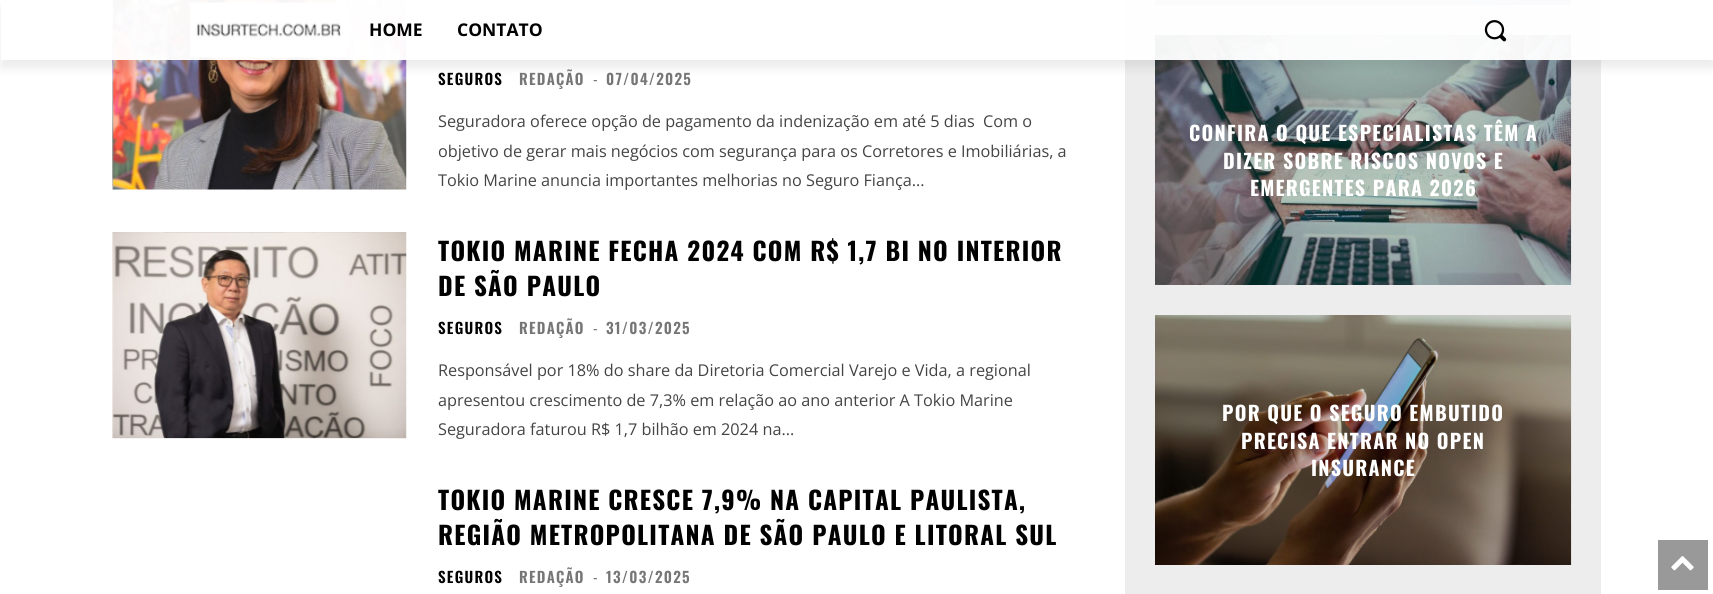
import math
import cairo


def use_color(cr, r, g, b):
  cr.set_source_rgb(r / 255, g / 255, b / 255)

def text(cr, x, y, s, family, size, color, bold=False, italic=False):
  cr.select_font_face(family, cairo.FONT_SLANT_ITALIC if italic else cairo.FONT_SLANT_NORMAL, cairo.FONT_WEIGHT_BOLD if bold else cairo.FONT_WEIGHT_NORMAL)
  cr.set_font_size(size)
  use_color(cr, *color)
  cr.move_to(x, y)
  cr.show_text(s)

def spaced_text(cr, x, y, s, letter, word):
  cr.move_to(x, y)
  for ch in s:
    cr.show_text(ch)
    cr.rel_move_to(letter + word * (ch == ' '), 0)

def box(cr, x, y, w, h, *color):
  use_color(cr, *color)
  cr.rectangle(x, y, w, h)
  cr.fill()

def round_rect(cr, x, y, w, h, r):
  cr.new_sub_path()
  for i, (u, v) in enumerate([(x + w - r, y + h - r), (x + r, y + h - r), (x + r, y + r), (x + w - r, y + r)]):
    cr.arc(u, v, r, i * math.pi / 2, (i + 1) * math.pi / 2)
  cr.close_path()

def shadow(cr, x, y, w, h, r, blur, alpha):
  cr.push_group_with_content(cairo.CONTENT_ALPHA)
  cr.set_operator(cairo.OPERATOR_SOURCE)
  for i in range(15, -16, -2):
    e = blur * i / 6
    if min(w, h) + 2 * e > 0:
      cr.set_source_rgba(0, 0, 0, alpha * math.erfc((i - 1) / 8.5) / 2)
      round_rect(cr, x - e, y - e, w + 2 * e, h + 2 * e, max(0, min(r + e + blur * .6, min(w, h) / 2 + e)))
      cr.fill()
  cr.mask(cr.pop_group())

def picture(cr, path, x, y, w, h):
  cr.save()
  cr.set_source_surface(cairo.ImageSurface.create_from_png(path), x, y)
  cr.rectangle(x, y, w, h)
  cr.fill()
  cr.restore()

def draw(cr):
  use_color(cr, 255, 255, 255)
  cr.paint()
  picture(cr, "img_03.png", 112, 0, 295, 190)
  box(cr, 1125, 0, 476, 594, 237, 237, 237)
  picture(cr, "img_05.png", 1155, 0, 416, 5)
  picture(cr, "img_06.png", 1155, 35, 417, 250)
  cr.set_source_rgba(1, 1, 1, 0.95)
  cr.rectangle(112, 0, 1489, 60)
  cr.fill()
  picture(cr, "img_01.png", 190, 2, 157, 56)
  cr.save()
  cr.set_fill_rule(cairo.FILL_RULE_EVEN_ODD)
  cr.new_path()
  cr.move_to(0, 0)
  cr.line_to(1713, 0)
  cr.line_to(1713, 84)
  cr.line_to(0, 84)
  cr.close_path()
  cr.move_to(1, 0)
  cr.line_to(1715, 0)
  cr.line_to(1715, 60)
  cr.line_to(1, 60)
  cr.close_path()
  cr.clip()
  use_color(cr, 0, 0, 0)
  shadow(cr, 1, 8, 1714, 60, 0, 5, 0.08)
  cr.restore()
  picture(cr, "img_02.png", 1484, 20, 23, 22)
  picture(cr, "img_04.png", 112, 232, 295, 207)
  picture(cr, "img_07.png", 1155, 315, 417, 250)
  box(cr, 1658, 540, 50, 50, 153, 153, 153)
  picture(cr, "img_08.png", 1671, 556, 23, 15)
  text(cr, 369, 36, "HOME", "Open Sans", 17.5, (0, 0, 0), bold=True)
  text(cr, 457, 36, "CONTATO", "Open Sans", 17.5, (0, 0, 0), bold=True)
  cr.select_font_face("Oswald SemiBold")
  cr.set_font_size(15)
  spaced_text(cr, 438, 85, "SEGUROS", 1.25, 0)
  use_color(cr, 118, 118, 118)
  spaced_text(cr, 519, 85, "REDAÇÃO", 1.25, 0)
  cr.select_font_face("Oswald")
  spaced_text(cr, 593, 85, "-", 1.25, 0)
  cr.select_font_face("Oswald SemiBold")
  spaced_text(cr, 606, 85, "07/04/2025", 1.25, 0)
  text(cr, 438, 127, "Seguradora oferece opção de pagamento da indenização em até 5 dias", "Open Sans", 16.25, (68, 68, 68))
  text(cr, 983, 127, "Com o", "Open Sans", 16.25, (68, 68, 68))
  text(cr, 438, 157, "objetivo de gerar mais negócios com segurança para os Corretores e Imobiliárias, a", "Open Sans", 16.25, (68, 68, 68))
  text(cr, 438, 186, "Tokio Marine anuncia importantes melhorias no Seguro Fiança...", "Open Sans", 16.25, (68, 68, 68))
  cr.select_font_face("Oswald", cairo.FONT_SLANT_NORMAL, cairo.FONT_WEIGHT_BOLD)
  cr.set_font_size(25)
  use_color(cr, 0, 0, 0)
  spaced_text(cr, 438, 261, "TOKIO MARINE FECHA 2024 COM R$ 1,7 BI NO INTERIOR", 1.25, 0)
  spaced_text(cr, 438, 296, "DE SÃO PAULO", 1.25, 0)
  cr.select_font_face("Oswald SemiBold")
  cr.set_font_size(15)
  spaced_text(cr, 438, 334, "SEGUROS", 1.25, 0)
  use_color(cr, 118, 118, 118)
  spaced_text(cr, 519, 334, "REDAÇÃO", 1.25, 0)
  cr.select_font_face("Oswald")
  spaced_text(cr, 593, 334, "-", 1.25, 0)
  cr.select_font_face("Oswald SemiBold")
  spaced_text(cr, 606, 334, "31/03/2025", 1.25, 0)
  text(cr, 438, 376, "Responsável por 18% do share da Diretoria Comercial Varejo e Vida, a regional", "Open Sans", 16.25, (68, 68, 68))
  text(cr, 438, 406, "apresentou crescimento de 7,3% em relação ao ano anterior A Tokio Marine", "Open Sans", 16.25, (68, 68, 68))
  text(cr, 438, 435, "Seguradora faturou R$ 1,7 bilhão em 2024 na...", "Open Sans", 16.25, (68, 68, 68))
  cr.select_font_face("Oswald", cairo.FONT_SLANT_NORMAL, cairo.FONT_WEIGHT_BOLD)
  cr.set_font_size(25)
  use_color(cr, 0, 0, 0)
  spaced_text(cr, 438, 510, "TOKIO MARINE CRESCE 7,9% NA CAPITAL PAULISTA,", 1.25, 0)
  spaced_text(cr, 438, 545, "REGIÃO METROPOLITANA DE SÃO PAULO E LITORAL SUL", 1.25, 0)
  cr.select_font_face("Oswald SemiBold")
  cr.set_font_size(15)
  spaced_text(cr, 438, 583, "SEGUROS", 1.25, 0)
  use_color(cr, 118, 118, 118)
  spaced_text(cr, 519, 583, "REDAÇÃO", 1.25, 0)
  cr.select_font_face("Oswald")
  spaced_text(cr, 593, 583, "-", 1.25, 0)
  cr.select_font_face("Oswald SemiBold")
  spaced_text(cr, 606, 583, "13/03/2025", 1.25, 0)
  cr.select_font_face("Oswald", cairo.FONT_SLANT_NORMAL, cairo.FONT_WEIGHT_BOLD)
  cr.set_font_size(20)
  use_color(cr, 255, 255, 255)
  spaced_text(cr, 1189, 141, "CONFIRA O QUE ESPECIALISTAS TÊM A", 1.25, 0)
  spaced_text(cr, 1223, 169, "DIZER SOBRE RISCOS NOVOS E", 1.25, 0)
  spaced_text(cr, 1250, 196, "EMERGENTES PARA 2026", 1.25, 0)
  spaced_text(cr, 1222, 421, "POR QUE O SEGURO EMBUTIDO", 1.25, 0)
  spaced_text(cr, 1241, 449, "PRECISA ENTRAR NO OPEN", 1.25, 0)
  spaced_text(cr, 1311, 476, "INSURANCE", 1.25, 0)


surface = cairo.ImageSurface(cairo.FORMAT_RGB24, 1713, 594)
cr = cairo.Context(surface)
options = cairo.FontOptions()
options.set_hint_metrics(cairo.HINT_METRICS_OFF)
options.set_hint_style(cairo.HINT_STYLE_NONE)
cr.set_font_options(options)
cr.set_miter_limit(4)
draw(cr)
surface.write_to_png("out.png")
